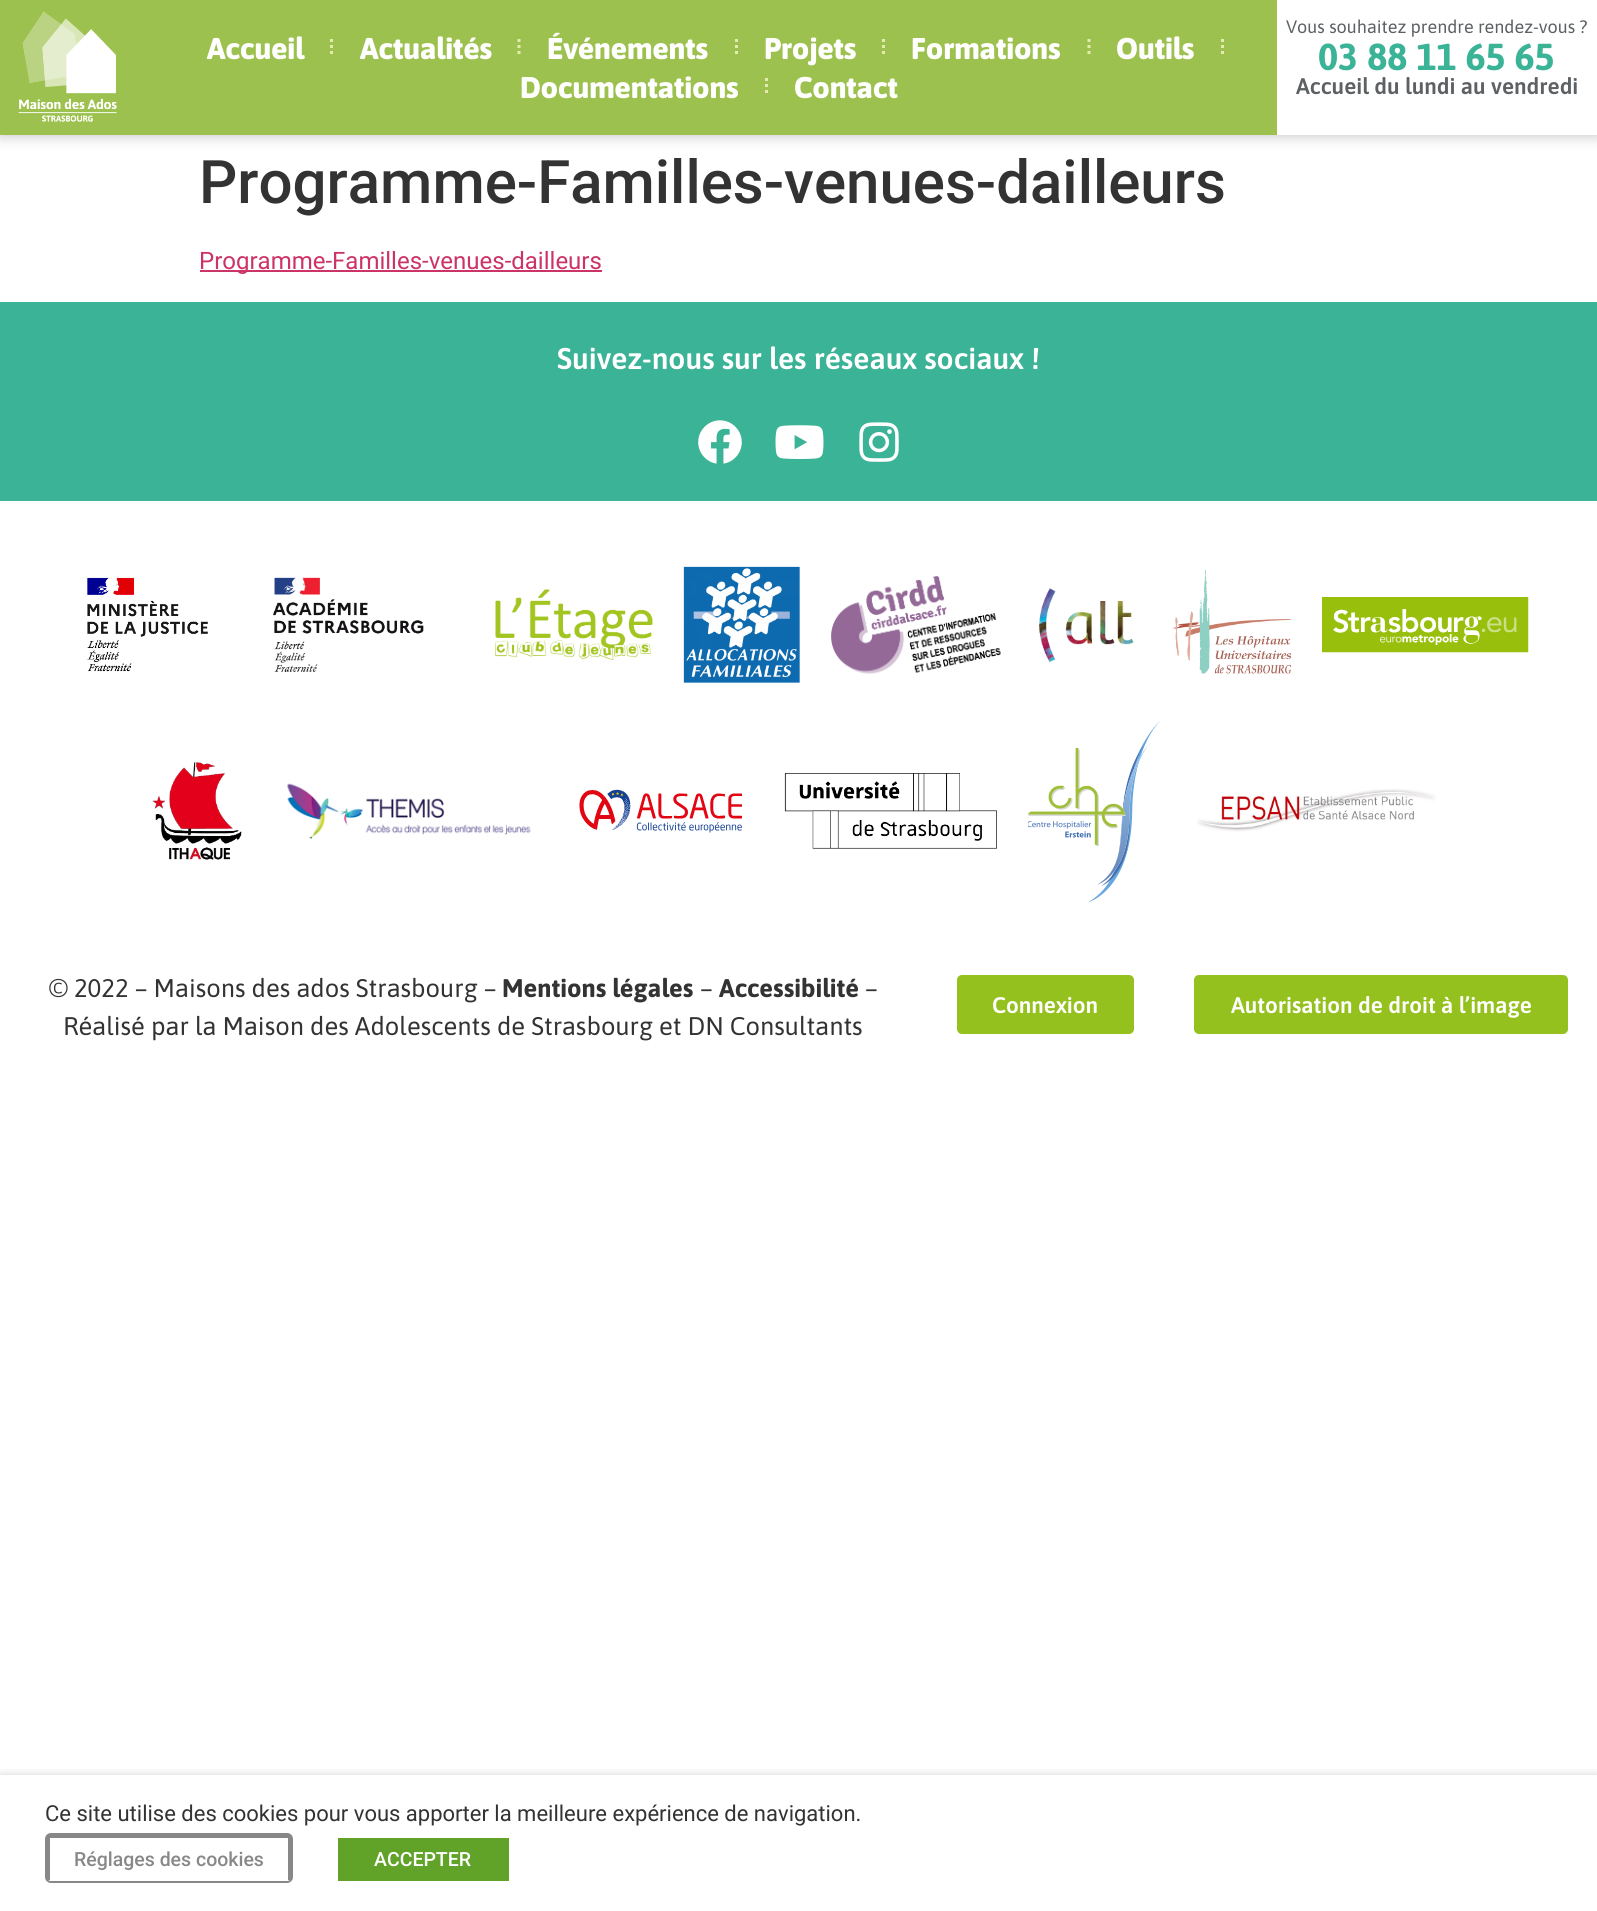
import math
import cairo


def use_color(cr, r, g, b):
  cr.set_source_rgb(r / 255, g / 255, b / 255)

def text(cr, x, y, s, family, size, color, bold=False, italic=False):
  cr.select_font_face(family, cairo.FONT_SLANT_ITALIC if italic else cairo.FONT_SLANT_NORMAL, cairo.FONT_WEIGHT_BOLD if bold else cairo.FONT_WEIGHT_NORMAL)
  cr.set_font_size(size)
  use_color(cr, *color)
  cr.move_to(x, y)
  cr.show_text(s)

def box(cr, x, y, w, h, *color):
  use_color(cr, *color)
  cr.rectangle(x, y, w, h)
  cr.fill()

def round_rect(cr, x, y, w, h, r):
  cr.new_sub_path()
  for i, (u, v) in enumerate([(x + w - r, y + h - r), (x + r, y + h - r), (x + r, y + r), (x + w - r, y + r)]):
    cr.arc(u, v, r, i * math.pi / 2, (i + 1) * math.pi / 2)
  cr.close_path()

def shadow(cr, x, y, w, h, r, blur, alpha):
  cr.push_group_with_content(cairo.CONTENT_ALPHA)
  cr.set_operator(cairo.OPERATOR_SOURCE)
  for i in range(15, -16, -2):
    e = blur * i / 6
    if min(w, h) + 2 * e > 0:
      cr.set_source_rgba(0, 0, 0, alpha * math.erfc((i - 1) / 8.5) / 2)
      round_rect(cr, x - e, y - e, w + 2 * e, h + 2 * e, max(0, min(r + e + blur * .6, min(w, h) / 2 + e)))
      cr.fill()
  cr.mask(cr.pop_group())

def picture(cr, path, x, y, w, h):
  cr.save()
  cr.set_source_surface(cairo.ImageSurface.create_from_png(path), x, y)
  cr.rectangle(x, y, w, h)
  cr.fill()
  cr.restore()

def draw(cr):
  use_color(cr, 255, 255, 255)
  cr.paint()
  use_color(cr, 0, 0, 0)
  shadow(cr, 0, 0, 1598, 135, 0, 7.5, 0.25)
  box(cr, 0, 0, 1277, 135, 157, 193, 78)
  picture(cr, "img_01.png", 18, 11, 99, 111)
  cr.new_path()
  cr.move_to(331.5, 39)
  cr.line_to(331.5, 42)
  cr.move_to(331.5, 45)
  cr.line_to(331.5, 48)
  cr.move_to(331.5, 51)
  cr.line_to(331.5, 54)
  use_color(cr, 228, 235, 177)
  cr.set_line_width(3)
  cr.stroke()
  cr.new_path()
  cr.move_to(519, 39)
  cr.line_to(519, 42)
  cr.move_to(519, 45)
  cr.line_to(519, 48)
  cr.move_to(519, 51)
  cr.line_to(519, 54)
  cr.stroke()
  cr.new_path()
  cr.move_to(736.5, 39)
  cr.line_to(736.5, 42)
  cr.move_to(736.5, 45)
  cr.line_to(736.5, 48)
  cr.move_to(736.5, 51)
  cr.line_to(736.5, 54)
  cr.stroke()
  cr.new_path()
  cr.move_to(883.5, 39)
  cr.line_to(883.5, 42)
  cr.move_to(883.5, 45)
  cr.line_to(883.5, 48)
  cr.move_to(883.5, 51)
  cr.line_to(883.5, 54)
  cr.stroke()
  cr.new_path()
  cr.move_to(1089, 39)
  cr.line_to(1089, 42)
  cr.move_to(1089, 45)
  cr.line_to(1089, 48)
  cr.move_to(1089, 51)
  cr.line_to(1089, 54)
  cr.stroke()
  cr.new_path()
  cr.move_to(1222.5, 39)
  cr.line_to(1222.5, 42)
  cr.move_to(1222.5, 45)
  cr.line_to(1222.5, 48)
  cr.move_to(1222.5, 51)
  cr.line_to(1222.5, 54)
  cr.stroke()
  cr.new_path()
  cr.move_to(766.5, 78)
  cr.line_to(766.5, 81)
  cr.move_to(766.5, 84)
  cr.line_to(766.5, 87)
  cr.move_to(766.5, 90)
  cr.line_to(766.5, 93)
  cr.stroke()
  box(cr, 1277, 0, 320, 135, 255, 255, 255)
  box(cr, 200, 270, 402, 2, 204, 51, 102)
  box(cr, 0, 302, 1597, 199, 59, 179, 150)
  picture(cr, "img_02.png", 698, 420, 44, 44)
  picture(cr, "img_03.png", 775, 425, 49, 34)
  picture(cr, "img_04.png", 859, 422, 40, 40)
  picture(cr, "img_05.png", 87, 577, 121, 95)
  picture(cr, "img_06.png", 273, 577, 151, 95)
  picture(cr, "img_07.png", 495, 589, 158, 71)
  picture(cr, "img_08.png", 683, 566, 117, 117)
  picture(cr, "img_09.png", 831, 576, 170, 98)
  picture(cr, "img_10.png", 1039, 588, 95, 75)
  picture(cr, "img_11.png", 1173, 570, 119, 104)
  picture(cr, "img_12.png", 1322, 597, 207, 56)
  picture(cr, "img_13.png", 152, 761, 90, 99)
  picture(cr, "img_14.png", 287, 783, 244, 56)
  picture(cr, "img_15.png", 579, 789, 163, 44)
  picture(cr, "img_16.png", 784, 773, 213, 76)
  picture(cr, "img_17.png", 1028, 719, 134, 184)
  picture(cr, "img_18.png", 1197, 789, 239, 43)
  use_color(cr, 149, 193, 31)
  round_rect(cr, 957, 975, 177, 59, 5)
  cr.fill()
  round_rect(cr, 1194, 975, 374, 59, 5)
  cr.fill()
  cr.save()
  cr.rectangle(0, 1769, 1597, 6)
  cr.clip()
  use_color(cr, 0, 0, 0)
  shadow(cr, 0, 1782, 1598, 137, 0, 7.5, 0.5)
  cr.restore()
  round_rect(cr, 46, 1834, 246, 48, 5)
  use_color(cr, 137, 136, 136)
  cr.set_line_width(2)
  cr.stroke()
  box(cr, 48, 1835, 242, 3, 137, 136, 136)
  box(cr, 288, 1836, 3, 44, 137, 136, 136)
  box(cr, 47, 1836, 3, 44, 137, 136, 136)
  box(cr, 338, 1838, 171, 43, 97, 162, 41)
  text(cr, 207, 59, "Accueil", "Asap ExtraBold", 30, (255, 255, 255))
  text(cr, 360, 59, "Actualités", "Asap ExtraBold", 30, (255, 255, 255))
  text(cr, 547, 59, "Événements", "Asap ExtraBold", 30, (255, 255, 255))
  text(cr, 764, 59, "Projets", "Asap ExtraBold", 30, (255, 255, 255))
  text(cr, 911, 59, "Formations", "Asap ExtraBold", 30, (255, 255, 255))
  text(cr, 1116, 59, "Outils", "Asap ExtraBold", 30, (255, 255, 255))
  text(cr, 520, 98, "Documentations", "Asap ExtraBold", 30, (255, 255, 255))
  text(cr, 794, 98, "Contact", "Asap ExtraBold", 30, (255, 255, 255))
  text(cr, 1286, 33, "Vous souhaitez prendre rendez-vous ?", "Asap", 18, (93, 97, 99))
  text(cr, 1318, 70, "03 88 11 65 65", "Asap", 37.5, (59, 179, 150), bold=True)
  text(cr, 1296, 94, "Accueil du lundi au vendredi", "Asap SemiBold", 22.5, (93, 97, 99))
  text(cr, 199, 203, "Programme-Familles-venues-dailleurs", "Roboto Medium", 60, (51, 51, 51))
  text(cr, 199, 269, "Programme-Familles-venues-dailleurs", "Roboto", 24, (204, 51, 102))
  text(cr, 557, 369, "Suivez-nous sur les réseaux sociaux !", "Asap SemiBold", 30, (255, 255, 255))
  text(cr, 49, 997, "© 2022 – Maisons des ados Strasbourg –", "Asap", 25.5, (51, 51, 51))
  text(cr, 502, 997, "Mentions légales", "Asap", 25.5, (51, 51, 51), bold=True)
  text(cr, 700, 997, "–", "Asap", 25.5, (51, 51, 51))
  text(cr, 719, 997, "Accessibilité", "Asap", 25.5, (51, 51, 51), bold=True)
  text(cr, 865, 997, "–", "Asap", 25.5, (51, 51, 51))
  text(cr, 63, 1035, "Réalisé par la Maison des Adolescents de Strasbourg et DN Consultants", "Asap", 25.5, (51, 51, 51))
  text(cr, 992, 1013, "Connexion", "Asap SemiBold", 22.5, (255, 255, 255))
  text(cr, 1231, 1013, "Autorisation de droit à l’image", "Asap SemiBold", 22.5, (255, 255, 255))
  text(cr, 45, 1821, "Ce site utilise des cookies pour vous apporter la meilleure expérience de navigation.", "Roboto", 22, (51, 51, 51))
  text(cr, 74, 1866, "Réglages des cookies", "Roboto Medium", 19.5, (137, 136, 136))
  text(cr, 374, 1866, "ACCEPTER", "Roboto Medium", 19.5, (255, 255, 255))


surface = cairo.ImageSurface(cairo.FORMAT_RGB24, 1597, 1911)
cr = cairo.Context(surface)
options = cairo.FontOptions()
options.set_hint_metrics(cairo.HINT_METRICS_OFF)
options.set_hint_style(cairo.HINT_STYLE_NONE)
cr.set_font_options(options)
cr.set_miter_limit(4)
draw(cr)
surface.write_to_png("out.png")
